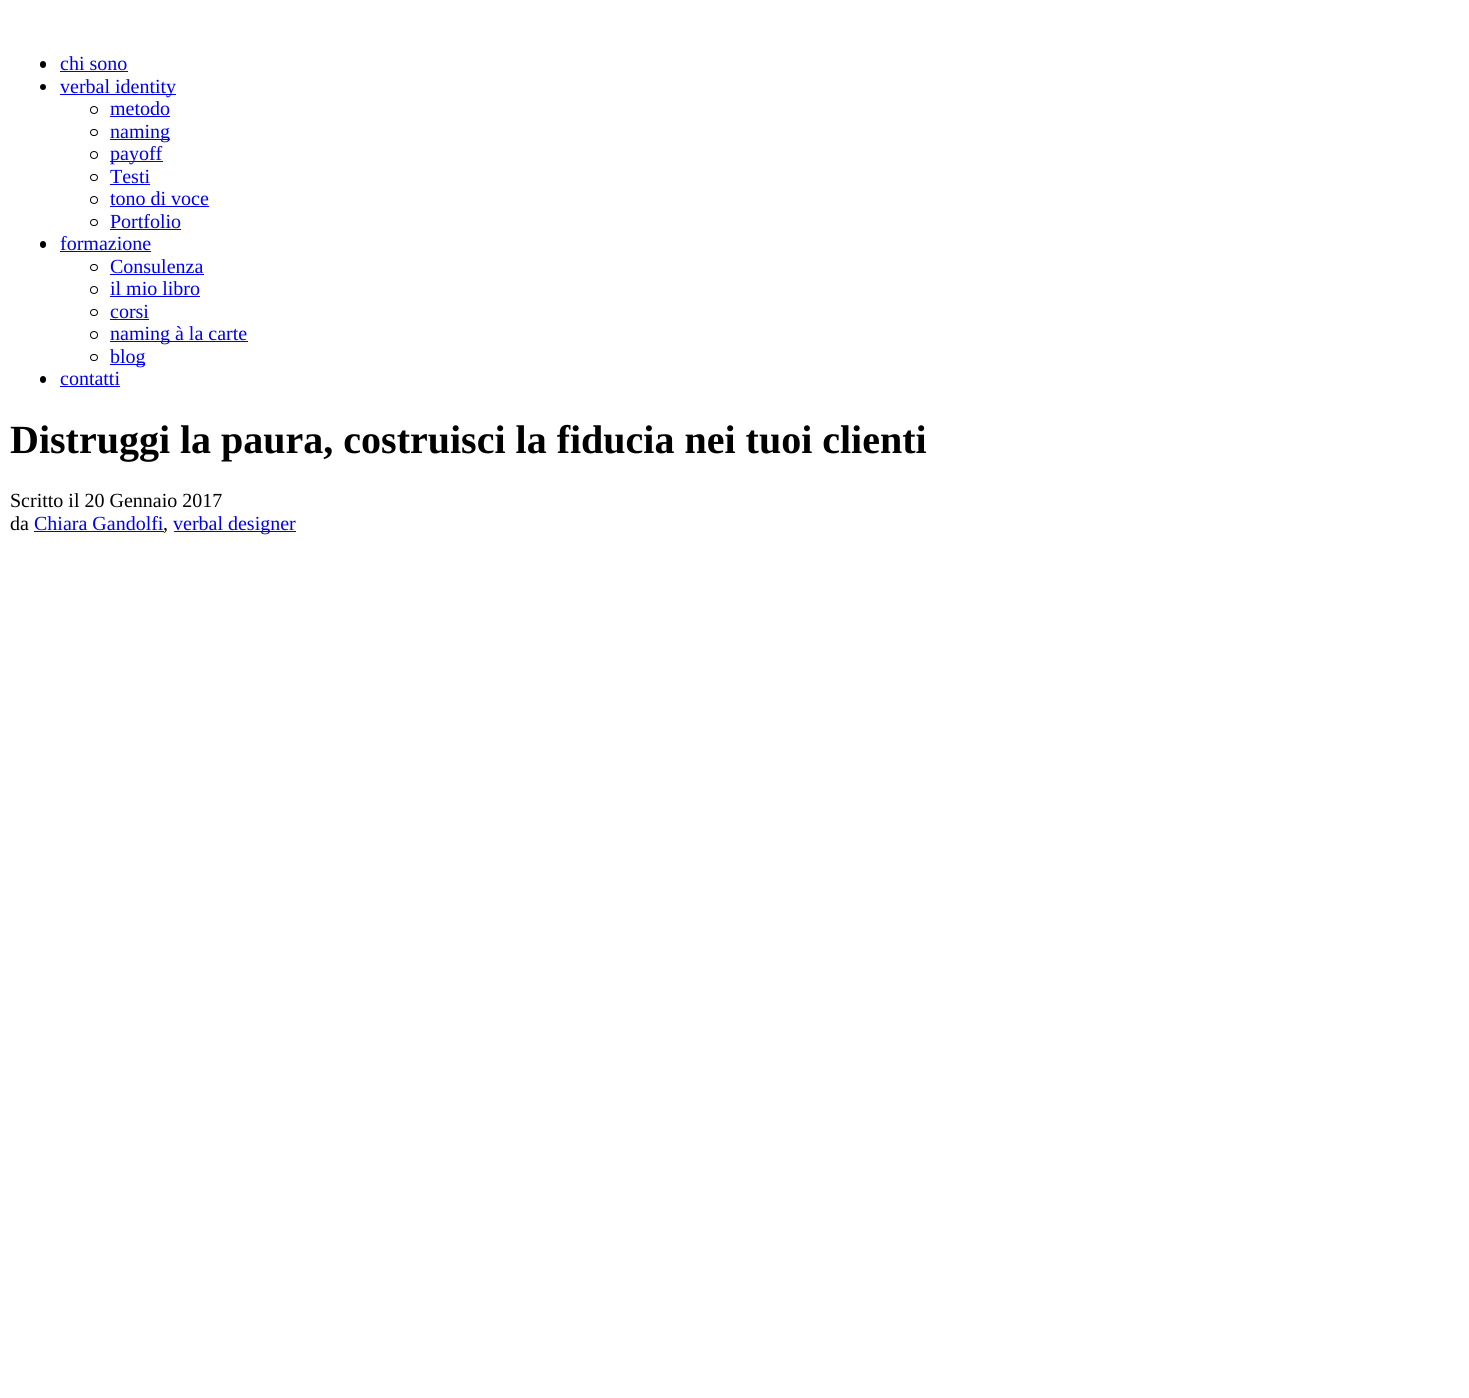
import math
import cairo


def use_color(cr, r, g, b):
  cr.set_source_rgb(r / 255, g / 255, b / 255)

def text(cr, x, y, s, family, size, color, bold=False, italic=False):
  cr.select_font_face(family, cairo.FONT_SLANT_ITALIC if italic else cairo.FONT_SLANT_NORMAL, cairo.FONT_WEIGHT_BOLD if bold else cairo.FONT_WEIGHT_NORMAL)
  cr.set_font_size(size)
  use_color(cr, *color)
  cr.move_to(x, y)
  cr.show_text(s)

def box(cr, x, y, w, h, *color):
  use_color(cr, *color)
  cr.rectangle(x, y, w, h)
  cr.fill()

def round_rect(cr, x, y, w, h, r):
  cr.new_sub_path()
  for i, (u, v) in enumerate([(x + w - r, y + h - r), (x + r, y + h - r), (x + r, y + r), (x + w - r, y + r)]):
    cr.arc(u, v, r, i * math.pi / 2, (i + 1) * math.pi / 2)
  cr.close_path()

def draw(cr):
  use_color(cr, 255, 255, 255)
  cr.paint()
  use_color(cr, 0, 0, 0)
  round_rect(cr, 40, 61, 6, 7, 3)
  cr.fill()
  box(cr, 60, 71, 68, 1, 0, 0, 238)
  use_color(cr, 0, 0, 0)
  cr.arc(43, 87, 3, 0, 2 * math.pi)
  cr.fill()
  box(cr, 60, 94, 116, 1, 0, 0, 238)
  cr.arc(94, 110, 3.5, 0, 2 * math.pi)
  use_color(cr, 0, 0, 0)
  cr.set_line_width(1)
  cr.stroke()
  box(cr, 110, 116, 60, 1, 0, 0, 238)
  round_rect(cr, 90.5, 129.5, 7, 6, 3)
  use_color(cr, 0, 0, 0)
  cr.stroke()
  box(cr, 110, 139, 60, 1, 0, 0, 238)
  cr.arc(94, 155, 3.5, 0, 2 * math.pi)
  use_color(cr, 0, 0, 0)
  cr.stroke()
  box(cr, 110, 161, 53, 1, 0, 0, 238)
  round_rect(cr, 90.5, 174.5, 7, 6, 3)
  use_color(cr, 0, 0, 0)
  cr.stroke()
  box(cr, 110, 184, 40, 1, 0, 0, 238)
  cr.arc(94, 200, 3.5, 0, 2 * math.pi)
  use_color(cr, 0, 0, 0)
  cr.stroke()
  box(cr, 110, 206, 99, 1, 0, 0, 238)
  round_rect(cr, 90.5, 219.5, 7, 6, 3)
  use_color(cr, 0, 0, 0)
  cr.stroke()
  box(cr, 110, 229, 71, 1, 0, 0, 238)
  use_color(cr, 0, 0, 0)
  round_rect(cr, 40, 241, 6, 7, 3)
  cr.fill()
  box(cr, 60, 251, 91, 1, 0, 0, 238)
  round_rect(cr, 90.5, 264.5, 7, 6, 3)
  use_color(cr, 0, 0, 0)
  cr.stroke()
  box(cr, 110, 274, 94, 1, 0, 0, 238)
  cr.arc(94, 290, 3.5, 0, 2 * math.pi)
  use_color(cr, 0, 0, 0)
  cr.stroke()
  box(cr, 110, 296, 90, 1, 0, 0, 238)
  round_rect(cr, 90.5, 309.5, 7, 6, 3)
  use_color(cr, 0, 0, 0)
  cr.stroke()
  box(cr, 110, 319, 39, 1, 0, 0, 238)
  cr.arc(94, 335, 3.5, 0, 2 * math.pi)
  use_color(cr, 0, 0, 0)
  cr.stroke()
  box(cr, 110, 341, 138, 1, 0, 0, 238)
  round_rect(cr, 90.5, 354.5, 7, 6, 3)
  use_color(cr, 0, 0, 0)
  cr.stroke()
  box(cr, 110, 364, 35, 1, 0, 0, 238)
  use_color(cr, 0, 0, 0)
  round_rect(cr, 40, 376, 6, 7, 3)
  cr.fill()
  box(cr, 60, 386, 60, 1, 0, 0, 238)
  box(cr, 34, 531, 130, 1, 0, 0, 238)
  box(cr, 174, 531, 122, 1, 0, 0, 238)
  text(cr, 60, 70, "chi sono", "Liberation Serif", 20, (0, 0, 238))
  text(cr, 60, 93, "verbal identity", "Liberation Serif", 20, (0, 0, 238))
  text(cr, 110, 115, "metodo", "Liberation Serif", 20, (0, 0, 238))
  text(cr, 110, 138, "naming", "Liberation Serif", 20, (0, 0, 238))
  text(cr, 110, 160, "payoff", "Liberation Serif", 20, (0, 0, 238))
  text(cr, 110, 183, "Testi", "Liberation Serif", 20, (0, 0, 238))
  text(cr, 110, 205, "tono di voce", "Liberation Serif", 20, (0, 0, 238))
  text(cr, 110, 228, "Portfolio", "Liberation Serif", 20, (0, 0, 238))
  text(cr, 60, 250, "formazione", "Liberation Serif", 20, (0, 0, 238))
  text(cr, 110, 273, "Consulenza", "Liberation Serif", 20, (0, 0, 238))
  text(cr, 110, 295, "il mio libro", "Liberation Serif", 20, (0, 0, 238))
  text(cr, 110, 318, "corsi", "Liberation Serif", 20, (0, 0, 238))
  text(cr, 110, 340, "naming à la carte", "Liberation Serif", 20, (0, 0, 238))
  text(cr, 110, 363, "blog", "Liberation Serif", 20, (0, 0, 238))
  text(cr, 60, 385, "contatti", "Liberation Serif", 20, (0, 0, 238))
  text(cr, 10, 453, "Distruggi la paura, costruisci la fiducia nei tuoi clienti", "Liberation Serif", 40, (0, 0, 0), bold=True)
  text(cr, 10, 507, "Scritto il 20 Gennaio 2017", "Liberation Serif", 20, (0, 0, 0))
  text(cr, 10, 530, "da", "Liberation Serif", 20, (0, 0, 0))
  text(cr, 34, 530, "Chiara Gandolfi", "Liberation Serif", 20, (0, 0, 238))
  text(cr, 163, 530, ",", "Liberation Serif", 20, (0, 0, 0))
  text(cr, 173, 530, "verbal designer", "Liberation Serif", 20, (0, 0, 238))


surface = cairo.ImageSurface(cairo.FORMAT_RGB24, 1469, 1398)
cr = cairo.Context(surface)
options = cairo.FontOptions()
options.set_hint_metrics(cairo.HINT_METRICS_OFF)
options.set_hint_style(cairo.HINT_STYLE_NONE)
cr.set_font_options(options)
cr.set_miter_limit(4)
draw(cr)
surface.write_to_png("out.png")
